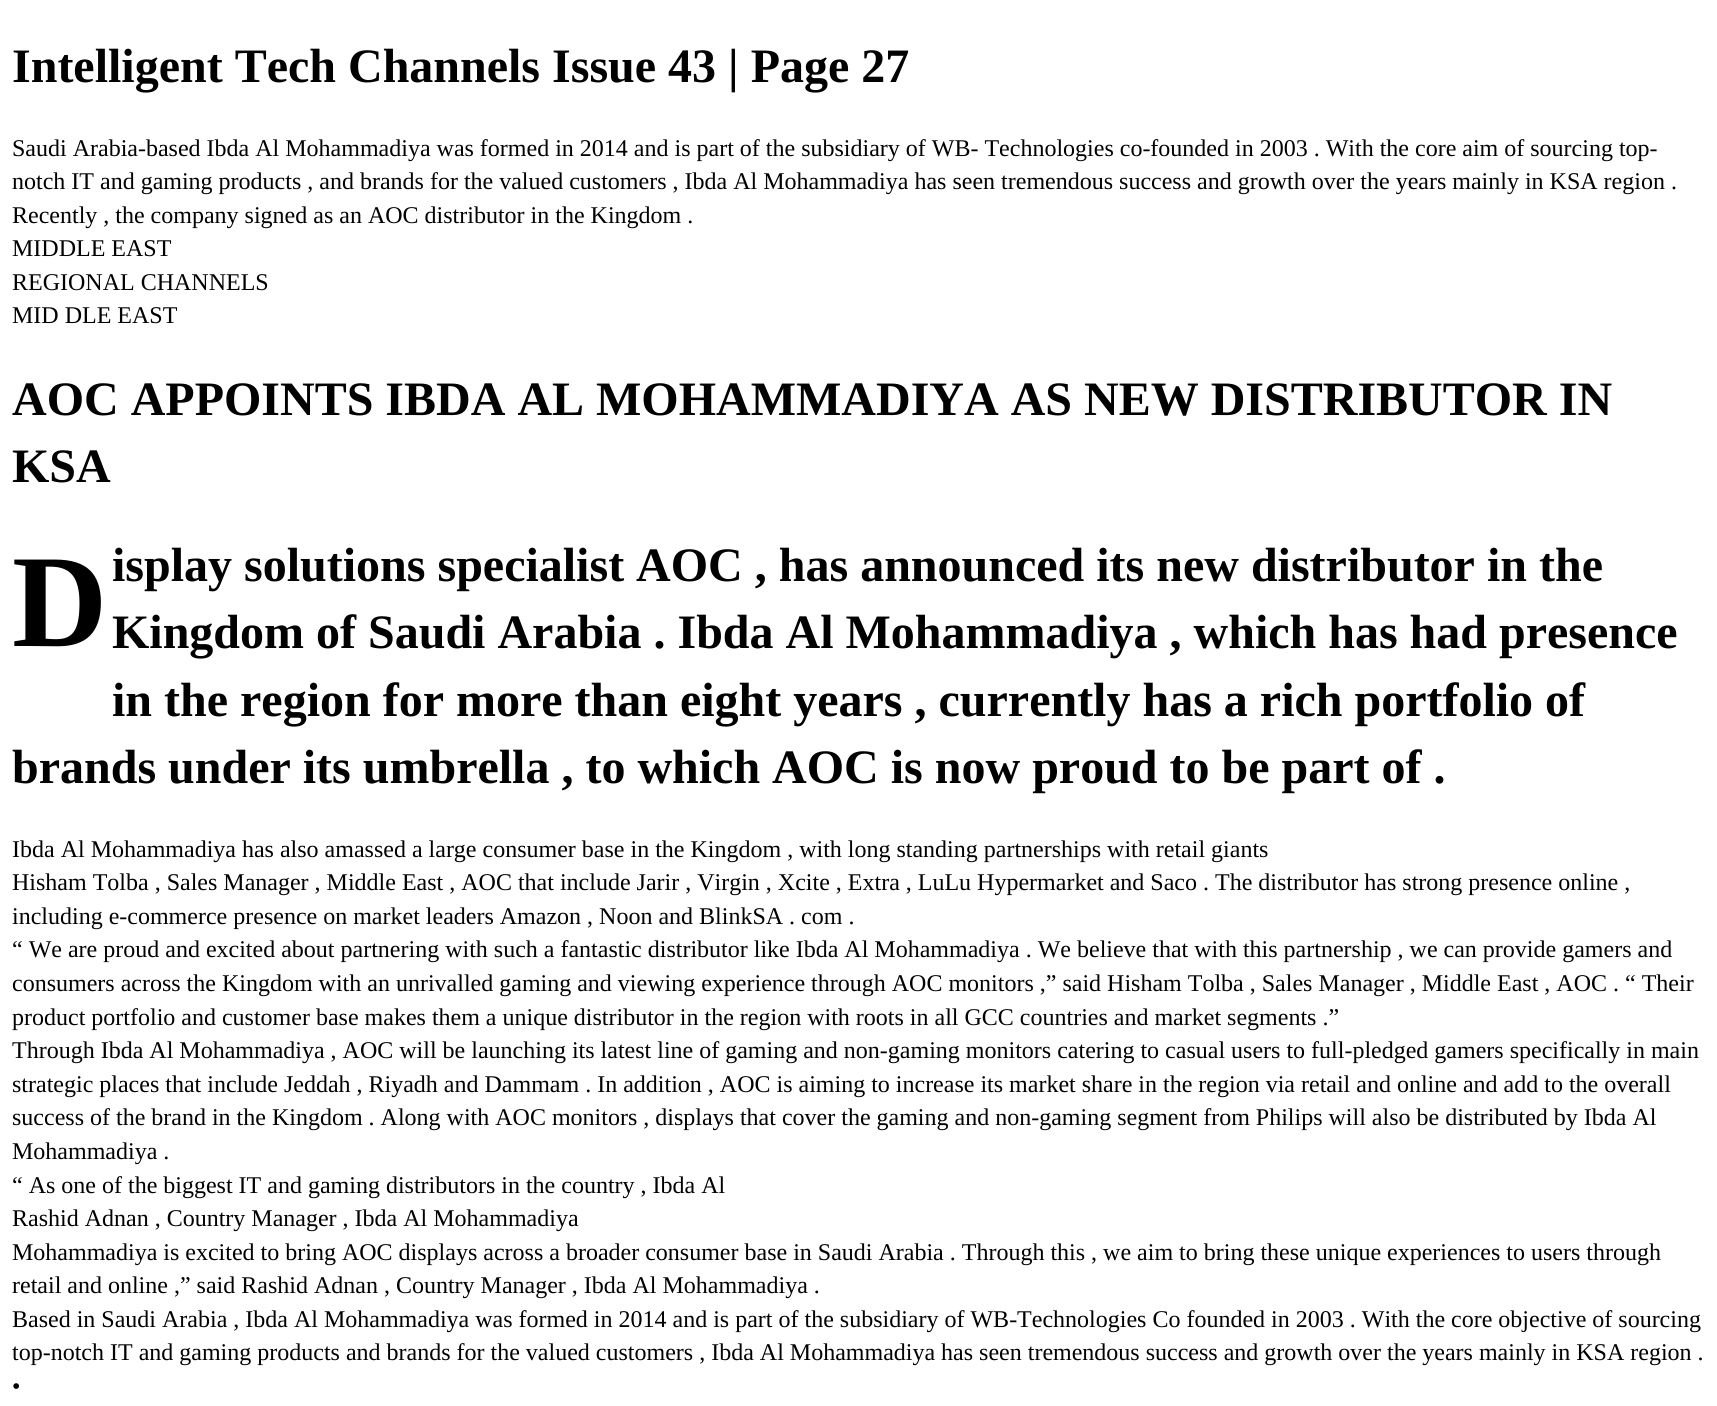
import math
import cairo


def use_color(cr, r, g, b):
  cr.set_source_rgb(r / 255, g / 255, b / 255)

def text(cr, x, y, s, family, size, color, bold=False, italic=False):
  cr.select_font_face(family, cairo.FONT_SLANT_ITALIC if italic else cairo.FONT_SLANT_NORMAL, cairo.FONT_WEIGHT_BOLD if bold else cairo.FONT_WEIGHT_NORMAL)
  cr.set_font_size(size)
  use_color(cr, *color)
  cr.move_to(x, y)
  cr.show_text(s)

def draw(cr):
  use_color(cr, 255, 255, 255)
  cr.paint()
  text(cr, 12, 82, "Intelligent Tech Channels Issue 43 | Page 27", "Liberation Serif", 48, (0, 0, 0), bold=True)
  text(cr, 12, 156, "Saudi Arabia-based Ibda Al Mohammadiya was formed in 2014 and is part of the subsidiary of WB- Technologies co-founded in 2003 . With the core aim of sourcing top-", "Liberation Serif", 24, (0, 0, 0))
  text(cr, 12, 189, "notch IT and gaming products , and brands for the valued customers , Ibda Al Mohammadiya has seen tremendous success and growth over the years mainly in KSA region .", "Liberation Serif", 24, (0, 0, 0))
  text(cr, 12, 223, "Recently , the company signed as an AOC distributor in the Kingdom .", "Liberation Serif", 24, (0, 0, 0))
  text(cr, 12, 256, "MIDDLE EAST", "Liberation Serif", 24, (0, 0, 0))
  text(cr, 12, 290, "REGIONAL CHANNELS", "Liberation Serif", 24, (0, 0, 0))
  text(cr, 12, 323, "MID DLE EAST", "Liberation Serif", 24, (0, 0, 0))
  text(cr, 12, 415, "AOC APPOINTS IBDA AL MOHAMMADIYA AS NEW DISTRIBUTOR IN", "Liberation Serif", 48, (0, 0, 0), bold=True)
  text(cr, 12, 482, "KSA", "Liberation Serif", 48, (0, 0, 0), bold=True)
  text(cr, 12, 646, "D", "Liberation Serif", 132, (0, 0, 0), bold=True)
  text(cr, 112, 581, "isplay solutions specialist AOC , has announced its new distributor in the", "Liberation Serif", 48, (0, 0, 0), bold=True)
  text(cr, 112, 648, "Kingdom of Saudi Arabia . Ibda Al Mohammadiya , which has had presence", "Liberation Serif", 48, (0, 0, 0), bold=True)
  text(cr, 112, 716, "in the region for more than eight years , currently has a rich portfolio of", "Liberation Serif", 48, (0, 0, 0), bold=True)
  text(cr, 12, 783, "brands under its umbrella , to which AOC is now proud to be part of .", "Liberation Serif", 48, (0, 0, 0), bold=True)
  text(cr, 12, 857, "Ibda Al Mohammadiya has also amassed a large consumer base in the Kingdom , with long standing partnerships with retail giants", "Liberation Serif", 24, (0, 0, 0))
  text(cr, 12, 890, "Hisham Tolba , Sales Manager , Middle East , AOC that include Jarir , Virgin , Xcite , Extra , LuLu Hypermarket and Saco . The distributor has strong presence online ,", "Liberation Serif", 24, (0, 0, 0))
  text(cr, 12, 924, "including e-commerce presence on market leaders Amazon , Noon and BlinkSA . com .", "Liberation Serif", 24, (0, 0, 0))
  text(cr, 12, 957, "“ We are proud and excited about partnering with such a fantastic distributor like Ibda Al Mohammadiya . We believe that with this partnership , we can provide gamers and", "Liberation Serif", 24, (0, 0, 0))
  text(cr, 12, 991, "consumers across the Kingdom with an unrivalled gaming and viewing experience through AOC monitors ,” said Hisham Tolba , Sales Manager , Middle East , AOC . “ Their", "Liberation Serif", 24, (0, 0, 0))
  text(cr, 12, 1025, "product portfolio and customer base makes them a unique distributor in the region with roots in all GCC countries and market segments .”", "Liberation Serif", 24, (0, 0, 0))
  text(cr, 12, 1058, "Through Ibda Al Mohammadiya , AOC will be launching its latest line of gaming and non-gaming monitors catering to casual users to full-pledged gamers specifically in main", "Liberation Serif", 24, (0, 0, 0))
  text(cr, 12, 1092, "strategic places that include Jeddah , Riyadh and Dammam . In addition , AOC is aiming to increase its market share in the region via retail and online and add to the overall", "Liberation Serif", 24, (0, 0, 0))
  text(cr, 12, 1125, "success of the brand in the Kingdom . Along with AOC monitors , displays that cover the gaming and non-gaming segment from Philips will also be distributed by Ibda Al", "Liberation Serif", 24, (0, 0, 0))
  text(cr, 12, 1159, "Mohammadiya .", "Liberation Serif", 24, (0, 0, 0))
  text(cr, 12, 1193, "“ As one of the biggest IT and gaming distributors in the country , Ibda Al", "Liberation Serif", 24, (0, 0, 0))
  text(cr, 12, 1226, "Rashid Adnan , Country Manager , Ibda Al Mohammadiya", "Liberation Serif", 24, (0, 0, 0))
  text(cr, 12, 1260, "Mohammadiya is excited to bring AOC displays across a broader consumer base in Saudi Arabia . Through this , we aim to bring these unique experiences to users through", "Liberation Serif", 24, (0, 0, 0))
  text(cr, 12, 1293, "retail and online ,” said Rashid Adnan , Country Manager , Ibda Al Mohammadiya .", "Liberation Serif", 24, (0, 0, 0))
  text(cr, 12, 1327, "Based in Saudi Arabia , Ibda Al Mohammadiya was formed in 2014 and is part of the subsidiary of WB-Technologies Co founded in 2003 . With the core objective of sourcing", "Liberation Serif", 24, (0, 0, 0))
  text(cr, 12, 1360, "top-notch IT and gaming products and brands for the valued customers , Ibda Al Mohammadiya has seen tremendous success and growth over the years mainly in KSA region .", "Liberation Serif", 24, (0, 0, 0))
  text(cr, 12, 1394, "•", "Liberation Serif", 24, (0, 0, 0))


surface = cairo.ImageSurface(cairo.FORMAT_RGB24, 1717, 1406)
cr = cairo.Context(surface)
options = cairo.FontOptions()
options.set_hint_metrics(cairo.HINT_METRICS_OFF)
options.set_hint_style(cairo.HINT_STYLE_NONE)
cr.set_font_options(options)
cr.set_miter_limit(4)
draw(cr)
surface.write_to_png("out.png")
